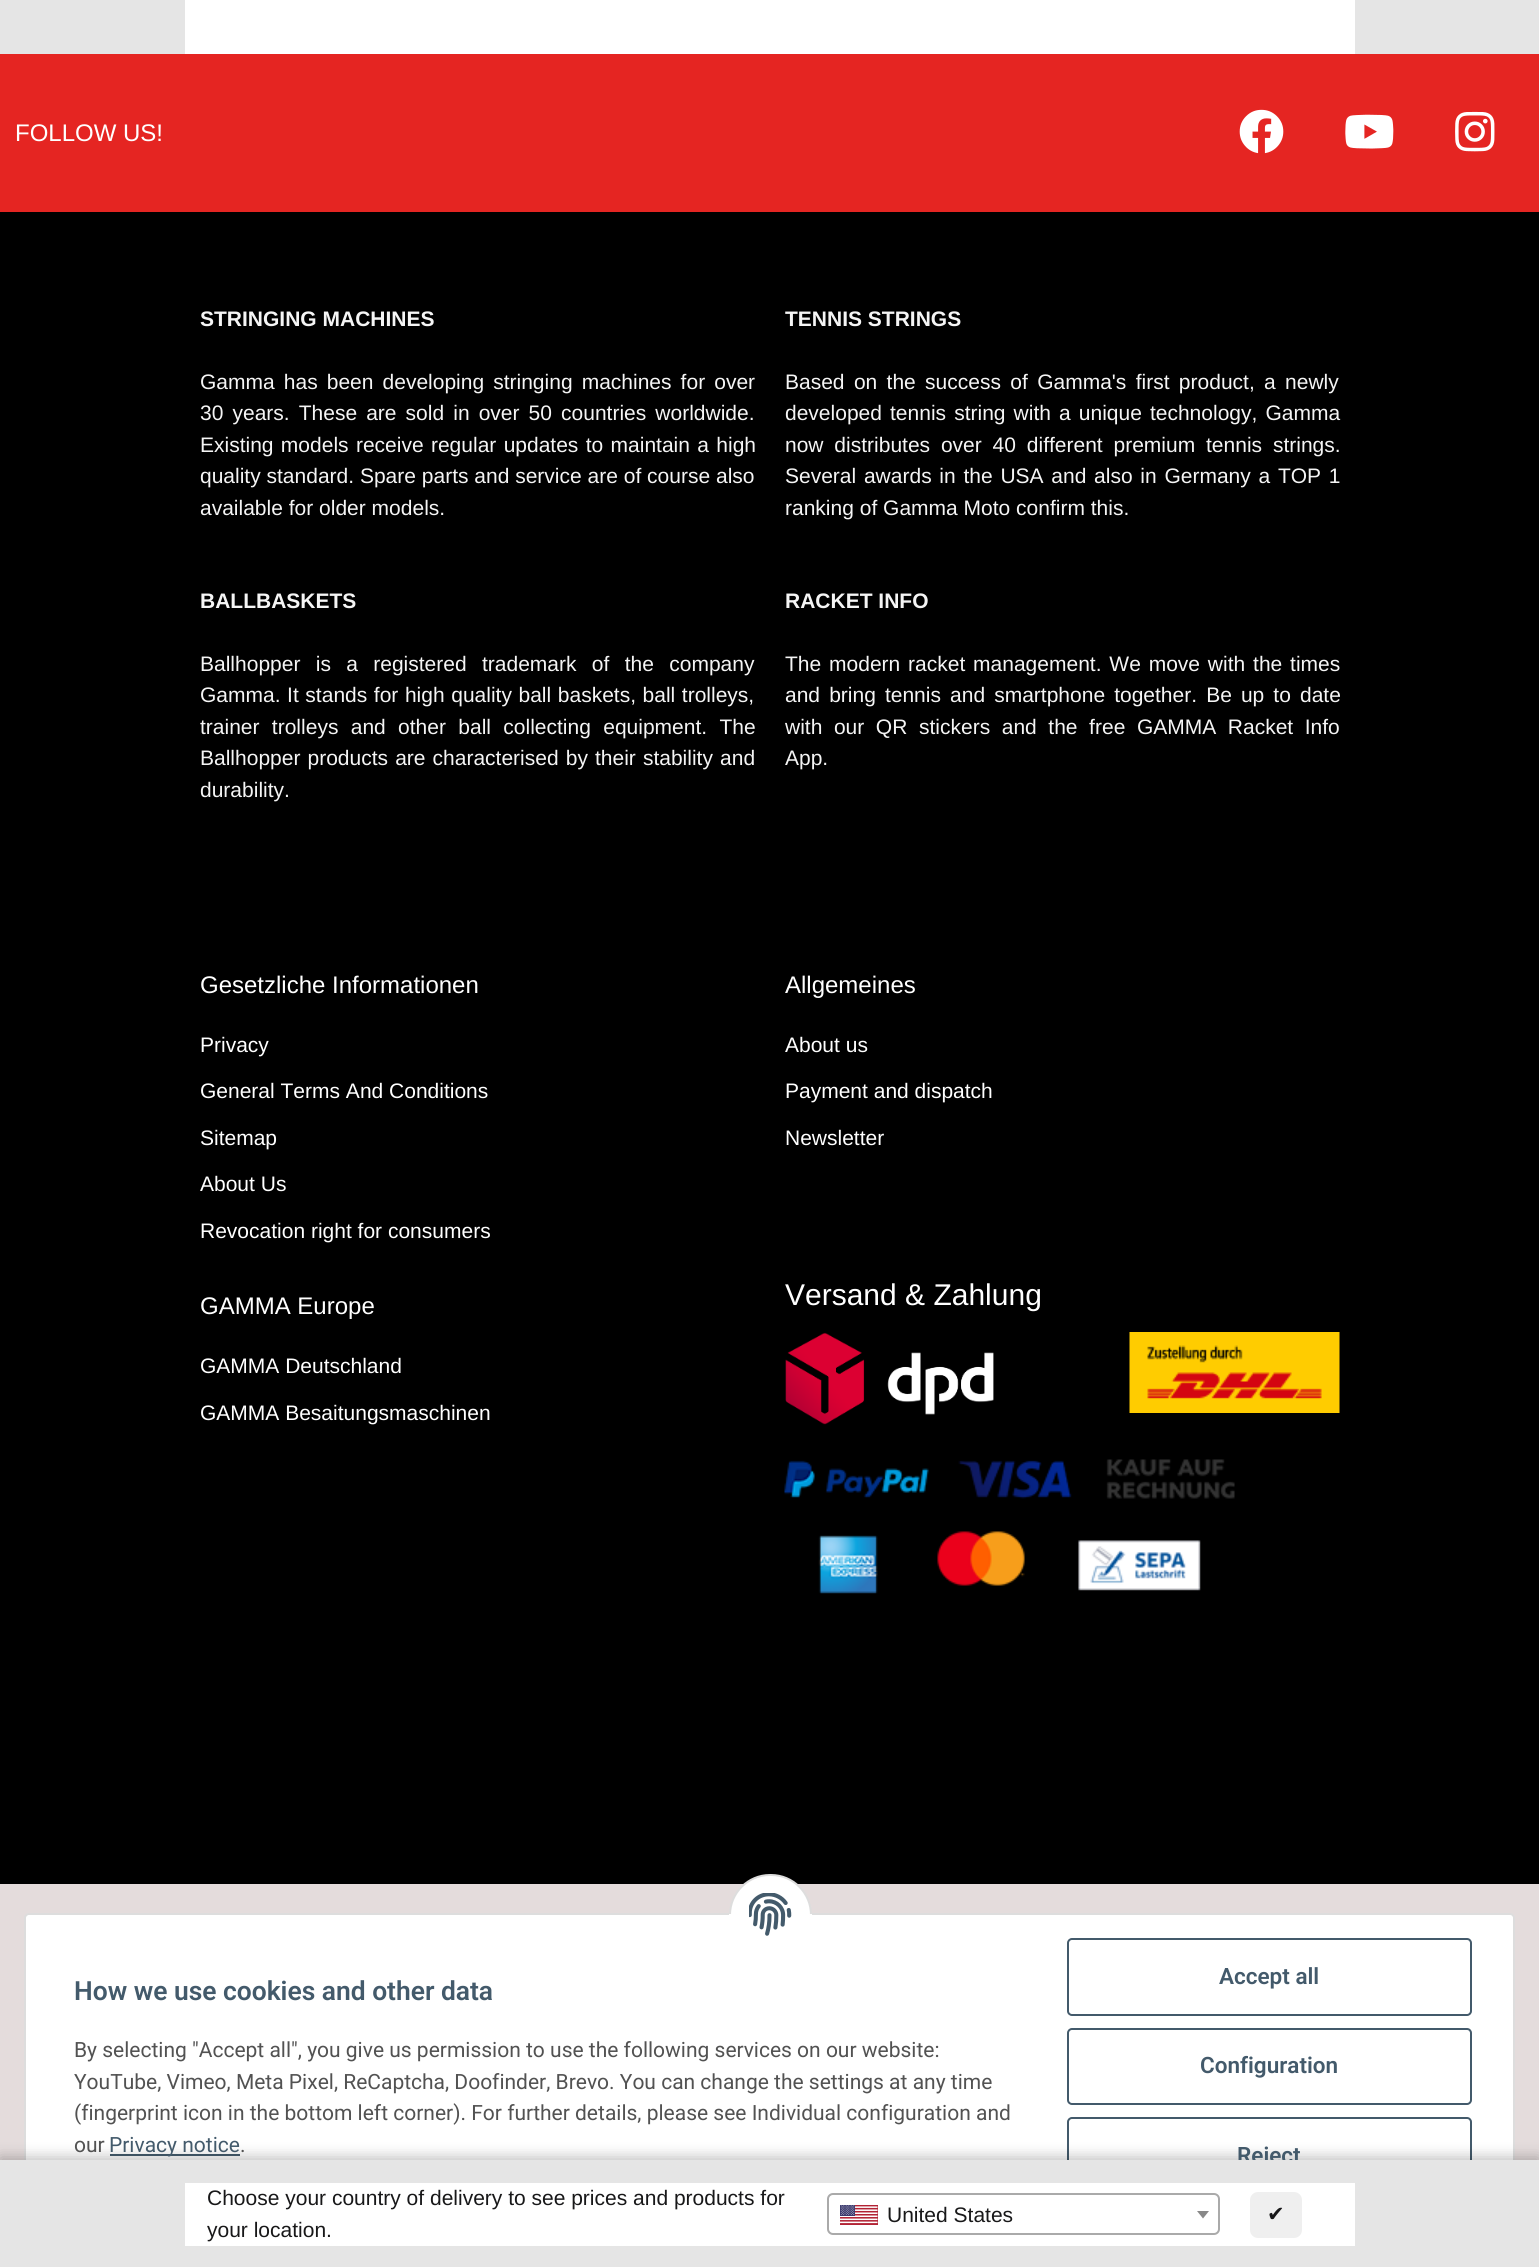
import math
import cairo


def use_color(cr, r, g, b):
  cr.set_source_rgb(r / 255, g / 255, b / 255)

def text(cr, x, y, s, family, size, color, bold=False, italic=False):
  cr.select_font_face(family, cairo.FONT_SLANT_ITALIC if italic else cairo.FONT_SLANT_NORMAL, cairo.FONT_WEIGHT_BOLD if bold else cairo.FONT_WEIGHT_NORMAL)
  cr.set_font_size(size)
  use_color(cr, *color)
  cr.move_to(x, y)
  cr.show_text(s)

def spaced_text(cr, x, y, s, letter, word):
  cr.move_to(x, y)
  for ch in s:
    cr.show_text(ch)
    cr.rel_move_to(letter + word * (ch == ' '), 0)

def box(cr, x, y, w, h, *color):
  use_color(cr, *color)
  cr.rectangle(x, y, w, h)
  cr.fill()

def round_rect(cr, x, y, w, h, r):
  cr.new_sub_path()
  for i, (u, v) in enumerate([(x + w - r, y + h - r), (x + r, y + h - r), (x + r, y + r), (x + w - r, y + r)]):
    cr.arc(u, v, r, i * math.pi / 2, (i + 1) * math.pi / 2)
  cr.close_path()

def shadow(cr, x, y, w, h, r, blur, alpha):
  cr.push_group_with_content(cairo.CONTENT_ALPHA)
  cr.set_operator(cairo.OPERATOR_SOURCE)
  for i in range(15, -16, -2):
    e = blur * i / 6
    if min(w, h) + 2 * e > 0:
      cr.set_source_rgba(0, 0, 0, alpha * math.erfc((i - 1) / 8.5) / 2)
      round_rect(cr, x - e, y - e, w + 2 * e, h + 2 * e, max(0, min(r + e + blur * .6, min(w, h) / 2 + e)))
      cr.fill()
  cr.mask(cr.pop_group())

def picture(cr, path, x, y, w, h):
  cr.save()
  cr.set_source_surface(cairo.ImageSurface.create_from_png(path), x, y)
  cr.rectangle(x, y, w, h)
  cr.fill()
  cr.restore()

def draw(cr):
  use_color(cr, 229, 229, 229)
  cr.paint()
  box(cr, 185, 0, 1170, 54, 255, 255, 255)
  box(cr, 0, 54, 1539, 158, 229, 37, 34)
  picture(cr, "img_01.png", 1239, 109, 45, 45)
  picture(cr, "img_02.png", 1345, 114, 49, 35)
  picture(cr, "img_03.png", 1455, 111, 40, 41)
  box(cr, 0, 212, 1539, 1672, 0, 0, 0)
  picture(cr, "img_04.png", 785, 1332, 209, 93)
  picture(cr, "img_05.png", 1129, 1332, 211, 81)
  picture(cr, "img_06.png", 784, 1459, 451, 135)
  box(cr, 0, 1884, 1539, 276, 228, 220, 220)
  use_color(cr, 255, 255, 255)
  round_rect(cr, 25, 1914, 1489, 305, 4)
  cr.fill_preserve()
  use_color(cr, 221, 221, 221)
  cr.stroke()
  use_color(cr, 255, 255, 255)
  round_rect(cr, 730, 1875, 81, 80, 40)
  cr.fill_preserve()
  use_color(cr, 221, 221, 221)
  cr.stroke()
  box(cr, 729, 1914, 83, 42, 255, 255, 255)
  picture(cr, "img_07.png", 749, 1893, 43, 43)
  box(cr, 110, 2154, 130, 2, 67, 90, 107)
  round_rect(cr, 1068, 1939, 403, 76, 4)
  cr.stroke()
  round_rect(cr, 1068, 2029, 403, 75, 4)
  cr.stroke()
  round_rect(cr, 1068, 2118, 403, 76, 4)
  cr.stroke()
  use_color(cr, 0, 0, 0)
  shadow(cr, 0, 2157, 1539, 108, 0, 7, 0.25)
  text(cr, 15, 141, "FOLLOW US!", "Liberation Sans", 24, (255, 255, 255))
  text(cr, 200, 326, "STRINGING MACHINES", "Liberation Sans", 21, (245, 245, 245), bold=True)
  cr.select_font_face("Liberation Sans")
  spaced_text(cr, 200, 389, "Gamma has been developing stringing machines for over", 0, 3.25)
  spaced_text(cr, 200, 420, "30 years. These are sold in over 50 countries worldwide.", 0, 3.25)
  spaced_text(cr, 200, 452, "Existing models receive regular updates to maintain a high", 0, 1.5)
  text(cr, 200, 483, "quality standard. Spare parts and service are of course also", "Liberation Sans", 21, (245, 245, 245))
  text(cr, 200, 515, "available for older models.", "Liberation Sans", 21, (245, 245, 245))
  text(cr, 785, 326, "TENNIS STRINGS", "Liberation Sans", 21, (245, 245, 245), bold=True)
  cr.select_font_face("Liberation Sans")
  spaced_text(cr, 785, 389, "Based on the success of Gamma's first product, a newly", 0, 3.5)
  spaced_text(cr, 785, 420, "developed tennis string with a unique technology, Gamma", 0, 2.25)
  spaced_text(cr, 785, 452, "now distributes over 40 different premium tennis strings.", 0, 5)
  spaced_text(cr, 785, 483, "Several awards in the USA and also in Germany a TOP 1", 0, 1.9)
  text(cr, 785, 515, "ranking of Gamma Moto confirm this.", "Liberation Sans", 21, (245, 245, 245))
  text(cr, 200, 608, "BALLBASKETS", "Liberation Sans", 21, (245, 245, 245), bold=True)
  cr.select_font_face("Liberation Sans")
  spaced_text(cr, 200, 671, "Ballhopper is a registered trademark of the company", 0, 9.5)
  spaced_text(cr, 200, 702, "Gamma. It stands for high quality ball baskets, ball trolleys,", 0, 0.75)
  spaced_text(cr, 200, 734, "trainer trolleys and other ball collecting equipment. The", 0, 6.5)
  spaced_text(cr, 200, 765, "Ballhopper products are characterised by their stability and", 0, 1.25)
  text(cr, 200, 797, "durability.", "Liberation Sans", 21, (245, 245, 245))
  text(cr, 785, 608, "RACKET INFO", "Liberation Sans", 21, (245, 245, 245), bold=True)
  cr.select_font_face("Liberation Sans")
  spaced_text(cr, 785, 671, "The modern racket management. We move with the times", 0, 2)
  spaced_text(cr, 785, 702, "and bring tennis and smartphone together. Be up to date", 0, 3.25)
  spaced_text(cr, 785, 734, "with our QR stickers and the free GAMMA Racket Info", 0, 5.75)
  text(cr, 785, 765, "App.", "Liberation Sans", 21, (245, 245, 245))
  text(cr, 200, 993, "Gesetzliche Informationen", "Liberation Sans", 24, (255, 255, 255))
  text(cr, 200, 1052, "Privacy", "Liberation Sans", 21, (255, 255, 255))
  text(cr, 200, 1098, "General Terms And Conditions", "Liberation Sans", 21, (255, 255, 255))
  text(cr, 200, 1145, "Sitemap", "Liberation Sans", 21, (255, 255, 255))
  text(cr, 200, 1191, "About Us", "Liberation Sans", 21, (255, 255, 255))
  text(cr, 200, 1238, "Revocation right for consumers", "Liberation Sans", 21, (255, 255, 255))
  text(cr, 785, 993, "Allgemeines", "Liberation Sans", 24, (255, 255, 255))
  text(cr, 785, 1052, "About us", "Liberation Sans", 21, (255, 255, 255))
  text(cr, 785, 1098, "Payment and dispatch", "Liberation Sans", 21, (255, 255, 255))
  text(cr, 785, 1145, "Newsletter", "Liberation Sans", 21, (255, 255, 255))
  text(cr, 200, 1314, "GAMMA Europe", "Liberation Sans", 24, (255, 255, 255))
  text(cr, 200, 1373, "GAMMA Deutschland", "Liberation Sans", 21, (255, 255, 255))
  text(cr, 200, 1420, "GAMMA Besaitungsmaschinen", "Liberation Sans", 21, (255, 255, 255))
  text(cr, 785, 1305, "Versand & Zahlung", "Liberation Sans", 30, (255, 255, 255))
  text(cr, 74, 2000, "How we use cookies and other data", "Roboto SemiBold", 26.4, (67, 90, 107))
  text(cr, 74, 2057, "By selecting \"Accept all\", you give us permission to use the following services on our website:", "Roboto", 21, (82, 82, 82))
  text(cr, 74, 2089, "YouTube, Vimeo, Meta Pixel, ReCaptcha, Doofinder, Brevo. You can change the settings at any time", "Roboto", 21, (82, 82, 82))
  text(cr, 74, 2120, "(fingerprint icon in the bottom left corner). For further details, please see Individual configuration and", "Roboto", 21, (82, 82, 82))
  text(cr, 74, 2152, "our", "Roboto", 21, (82, 82, 82))
  text(cr, 109, 2152, "Privacy notice", "Roboto", 21, (67, 90, 107))
  text(cr, 240, 2152, ".", "Roboto", 21, (82, 82, 82))
  text(cr, 1219, 1984, "Accept all", "Roboto SemiBold", 22.5, (67, 90, 107))
  text(cr, 1200, 2073, "Configuration", "Roboto SemiBold", 22.5, (67, 90, 107))
  text(cr, 1237, 2163, "Reject", "Roboto SemiBold", 22.5, (67, 90, 107))
  box(cr, 0, 2160, 1539, 107, 229, 229, 229)
  box(cr, 185, 2183, 1170, 63, 255, 255, 255)
  text(cr, 207, 2205, "Choose your country of delivery to see prices and products for", "Liberation Sans", 21, (24, 24, 25))
  text(cr, 207, 2237, "your location.", "Liberation Sans", 21, (24, 24, 25))
  round_rect(cr, 828, 2194, 391, 40, 5)
  use_color(cr, 170, 170, 170)
  cr.stroke()
  picture(cr, "img_08.png", 840, 2205, 38, 20)
  text(cr, 887, 2222, "United States", "Liberation Sans", 21, (24, 24, 25))
  use_color(cr, 136, 136, 136)
  cr.new_path()
  cr.move_to(1197, 2211)
  cr.line_to(1209, 2211)
  cr.line_to(1203, 2218.5)
  cr.close_path()
  cr.fill()
  use_color(cr, 239, 239, 239)
  round_rect(cr, 1250, 2192, 52, 46, 8)
  cr.fill()
  text(cr, 1267, 2221, "✔", "DejaVu Sans", 21, (24, 24, 25))


surface = cairo.ImageSurface(cairo.FORMAT_RGB24, 1539, 2267)
cr = cairo.Context(surface)
options = cairo.FontOptions()
options.set_hint_metrics(cairo.HINT_METRICS_OFF)
options.set_hint_style(cairo.HINT_STYLE_NONE)
cr.set_font_options(options)
cr.set_miter_limit(4)
draw(cr)
surface.write_to_png("out.png")
